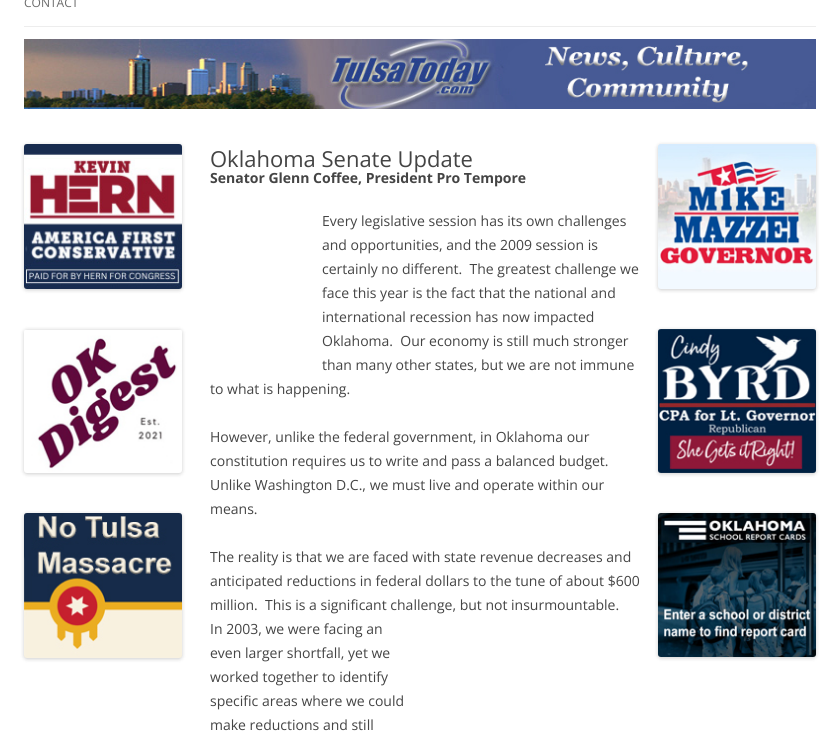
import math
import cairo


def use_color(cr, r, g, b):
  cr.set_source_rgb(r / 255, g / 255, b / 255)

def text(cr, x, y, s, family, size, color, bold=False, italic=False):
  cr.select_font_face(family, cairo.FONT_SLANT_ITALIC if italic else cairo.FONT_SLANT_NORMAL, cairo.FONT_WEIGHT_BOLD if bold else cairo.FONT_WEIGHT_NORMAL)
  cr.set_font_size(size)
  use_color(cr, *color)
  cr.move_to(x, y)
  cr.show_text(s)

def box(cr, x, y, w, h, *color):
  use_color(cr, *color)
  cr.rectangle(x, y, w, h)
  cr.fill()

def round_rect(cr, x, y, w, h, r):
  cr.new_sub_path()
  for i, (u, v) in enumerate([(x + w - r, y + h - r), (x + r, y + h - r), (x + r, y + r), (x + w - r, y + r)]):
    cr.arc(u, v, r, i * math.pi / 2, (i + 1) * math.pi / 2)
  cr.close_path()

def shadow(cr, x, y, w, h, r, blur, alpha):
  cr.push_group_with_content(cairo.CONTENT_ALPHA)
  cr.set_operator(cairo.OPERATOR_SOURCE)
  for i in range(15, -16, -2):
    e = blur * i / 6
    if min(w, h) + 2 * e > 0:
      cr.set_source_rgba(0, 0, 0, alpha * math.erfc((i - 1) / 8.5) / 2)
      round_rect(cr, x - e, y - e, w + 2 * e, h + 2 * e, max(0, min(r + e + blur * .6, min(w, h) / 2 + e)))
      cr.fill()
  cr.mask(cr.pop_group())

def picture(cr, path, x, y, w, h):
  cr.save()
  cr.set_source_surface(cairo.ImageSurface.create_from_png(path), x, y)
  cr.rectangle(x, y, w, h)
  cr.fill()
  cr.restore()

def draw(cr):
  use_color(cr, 255, 255, 255)
  cr.paint()
  box(cr, 24, 26, 792, 1, 237, 237, 237)
  picture(cr, "img_01.png", 24, 39, 792, 70)
  use_color(cr, 0, 0, 0)
  shadow(cr, 24, 145, 158, 145, 3, 2, 0.2)
  picture(cr, "img_02.png", 24, 144, 158, 145)
  shadow(cr, 24, 330, 158, 144, 3, 2, 0.2)
  picture(cr, "img_03.png", 24, 330, 158, 143)
  shadow(cr, 24, 514, 158, 145, 3, 2, 0.2)
  picture(cr, "img_04.png", 24, 513, 158, 145)
  shadow(cr, 658, 145, 158, 145, 3, 2, 0.2)
  picture(cr, "img_05.png", 658, 144, 158, 145)
  shadow(cr, 658, 330, 158, 144, 3, 2, 0.2)
  picture(cr, "img_06.png", 658, 329, 158, 144)
  shadow(cr, 658, 514, 158, 144, 3, 2, 0.2)
  picture(cr, "img_07.png", 658, 513, 158, 144)
  text(cr, 24, 7, "CONTACT", "Open Sans", 12, (106, 106, 106))
  text(cr, 210, 167, "Oklahoma Senate Update", "Open Sans", 22, (68, 68, 68))
  text(cr, 210, 183, "Senator Glenn Coffee, President Pro Tempore", "Open Sans", 14, (68, 68, 68), bold=True)
  text(cr, 322, 226, "Every legislative session has its own challenges", "Open Sans", 14, (68, 68, 68))
  text(cr, 322, 250, "and opportunities, and the 2009 session is", "Open Sans", 14, (68, 68, 68))
  text(cr, 322, 274, "certainly no different.  The greatest challenge we", "Open Sans", 14, (68, 68, 68))
  text(cr, 322, 298, "face this year is the fact that the national and", "Open Sans", 14, (68, 68, 68))
  text(cr, 322, 322, "international recession has now impacted", "Open Sans", 14, (68, 68, 68))
  text(cr, 322, 346, "Oklahoma.  Our economy is still much stronger", "Open Sans", 14, (68, 68, 68))
  text(cr, 322, 370, "than many other states, but we are not immune", "Open Sans", 14, (68, 68, 68))
  text(cr, 210, 394, "to what is happening.", "Open Sans", 14, (68, 68, 68))
  text(cr, 210, 442, "However, unlike the federal government, in Oklahoma our", "Open Sans", 14, (68, 68, 68))
  text(cr, 210, 466, "constitution requires us to write and pass a balanced budget.", "Open Sans", 14, (68, 68, 68))
  text(cr, 210, 490, "Unlike Washington D.C., we must live and operate within our", "Open Sans", 14, (68, 68, 68))
  text(cr, 210, 514, "means.", "Open Sans", 14, (68, 68, 68))
  text(cr, 210, 562, "The reality is that we are faced with state revenue decreases and", "Open Sans", 14, (68, 68, 68))
  text(cr, 210, 586, "anticipated reductions in federal dollars to the tune of about $600", "Open Sans", 14, (68, 68, 68))
  text(cr, 210, 610, "million.  This is a significant challenge, but not insurmountable.", "Open Sans", 14, (68, 68, 68))
  text(cr, 210, 634, "In 2003, we were facing an", "Open Sans", 14, (68, 68, 68))
  text(cr, 210, 658, "even larger shortfall, yet we", "Open Sans", 14, (68, 68, 68))
  text(cr, 210, 682, "worked together to identify", "Open Sans", 14, (68, 68, 68))
  text(cr, 210, 706, "specific areas where we could", "Open Sans", 14, (68, 68, 68))
  text(cr, 210, 730, "make reductions and still", "Open Sans", 14, (68, 68, 68))


surface = cairo.ImageSurface(cairo.FORMAT_RGB24, 840, 731)
cr = cairo.Context(surface)
options = cairo.FontOptions()
options.set_hint_metrics(cairo.HINT_METRICS_OFF)
options.set_hint_style(cairo.HINT_STYLE_NONE)
cr.set_font_options(options)
cr.set_miter_limit(4)
draw(cr)
surface.write_to_png("out.png")
